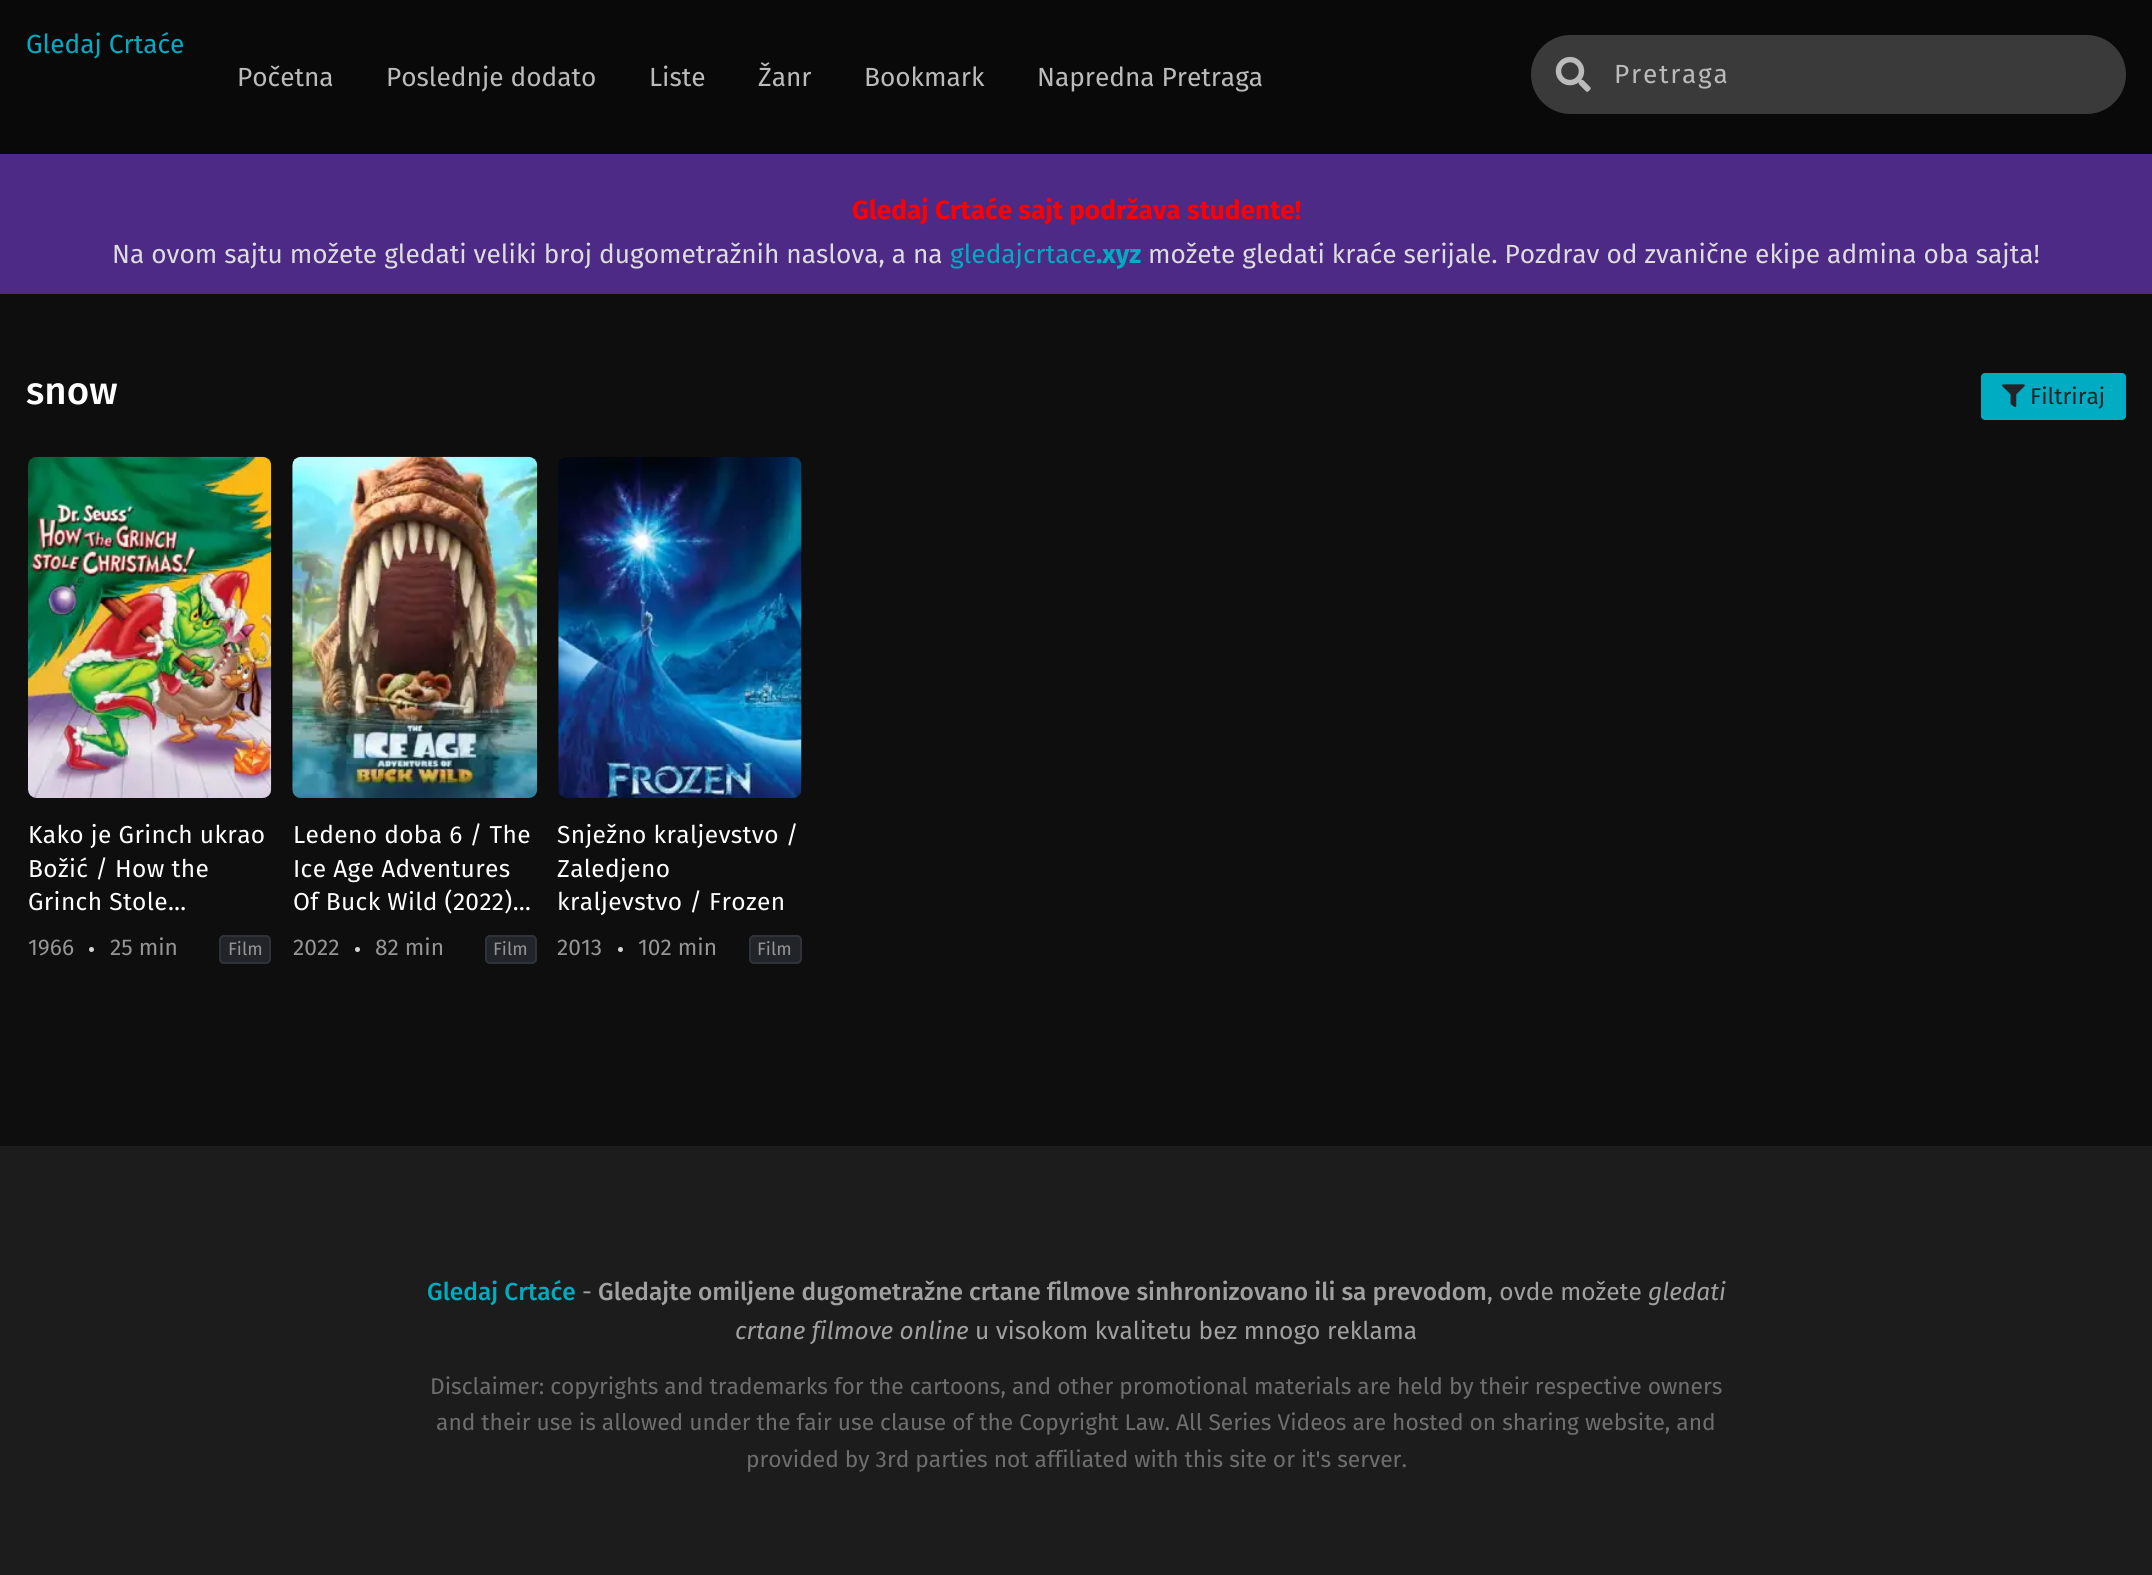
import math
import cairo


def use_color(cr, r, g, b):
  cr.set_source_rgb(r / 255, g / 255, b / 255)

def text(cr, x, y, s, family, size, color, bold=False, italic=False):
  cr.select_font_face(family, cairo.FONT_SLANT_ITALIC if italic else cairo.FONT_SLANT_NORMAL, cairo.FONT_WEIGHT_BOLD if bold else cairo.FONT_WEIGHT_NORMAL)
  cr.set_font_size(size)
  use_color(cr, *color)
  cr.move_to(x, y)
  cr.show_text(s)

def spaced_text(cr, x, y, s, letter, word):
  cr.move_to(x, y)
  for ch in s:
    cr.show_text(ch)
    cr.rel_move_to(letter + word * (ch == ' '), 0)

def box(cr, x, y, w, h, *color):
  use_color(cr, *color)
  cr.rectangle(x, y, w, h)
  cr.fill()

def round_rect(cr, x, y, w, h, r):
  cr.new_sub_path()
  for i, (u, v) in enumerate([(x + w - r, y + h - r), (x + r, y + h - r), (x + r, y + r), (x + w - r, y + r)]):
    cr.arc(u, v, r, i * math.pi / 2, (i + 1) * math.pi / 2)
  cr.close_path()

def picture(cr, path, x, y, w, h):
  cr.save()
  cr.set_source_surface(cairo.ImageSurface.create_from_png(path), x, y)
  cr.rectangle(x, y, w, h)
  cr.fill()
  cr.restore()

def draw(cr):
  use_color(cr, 14, 14, 14)
  cr.paint()
  box(cr, 0, 0, 2152, 154, 9, 9, 9)
  use_color(cr, 58, 58, 58)
  round_rect(cr, 1531, 35, 595, 79, 39.5)
  cr.fill()
  picture(cr, "img_01.png", 1555, 56, 36, 36)
  box(cr, 0, 154, 2152, 140, 76, 42, 133)
  use_color(cr, 0, 172, 193)
  round_rect(cr, 1981, 373, 145, 47, 4)
  cr.fill()
  picture(cr, "img_02.png", 2002, 384, 23, 24)
  picture(cr, "img_03.png", 28, 456, 244, 342)
  use_color(cr, 213, 213, 213)
  cr.arc(91.5, 949.5, 2.5, 0, 2 * math.pi)
  cr.fill()
  use_color(cr, 33, 37, 41)
  round_rect(cr, 220, 936, 50, 27, 4)
  cr.fill_preserve()
  use_color(cr, 47, 51, 56)
  cr.stroke()
  picture(cr, "img_04.png", 292, 456, 246, 342)
  use_color(cr, 213, 213, 213)
  cr.arc(357.5, 949.5, 2.5, 0, 2 * math.pi)
  cr.fill()
  use_color(cr, 33, 37, 41)
  round_rect(cr, 486, 936, 50, 27, 4)
  cr.fill_preserve()
  use_color(cr, 47, 51, 56)
  cr.stroke()
  picture(cr, "img_05.png", 558, 456, 244, 342)
  use_color(cr, 213, 213, 213)
  cr.arc(620.5, 949.5, 2.5, 0, 2 * math.pi)
  cr.fill()
  use_color(cr, 33, 37, 41)
  round_rect(cr, 750, 936, 51, 27, 4)
  cr.fill_preserve()
  use_color(cr, 47, 51, 56)
  cr.stroke()
  box(cr, 0, 1146, 2152, 429, 28, 28, 28)
  text(cr, 26, 53, "Gledaj Crtaće", "Fira Sans", 26.25, (0, 172, 193))
  text(cr, 237, 86, "Početna", "Fira Sans", 26.25, (187, 187, 187))
  text(cr, 386, 86, "Poslednje dodato", "Fira Sans", 26.25, (187, 187, 187))
  text(cr, 649, 86, "Liste", "Fira Sans", 26.25, (187, 187, 187))
  text(cr, 758, 86, "Žanr", "Fira Sans", 26.25, (187, 187, 187))
  text(cr, 864, 86, "Bookmark", "Fira Sans", 26.25, (187, 187, 187))
  text(cr, 1037, 86, "Napredna Pretraga", "Fira Sans", 26.25, (187, 187, 187))
  spaced_text(cr, 1614, 83, "Pretraga", 1.75, 0)
  text(cr, 852, 219, "Gledaj Crtaće sajt podržava studente!", "Fira Sans", 26.25, (255, 0, 0), bold=True)
  text(cr, 112, 263, "Na ovom sajtu možete gledati veliki broj dugometražnih naslova, a na", "Fira Sans", 26.25, (221, 221, 221))
  text(cr, 950, 263, "gledajcrtace", "Fira Sans", 26.25, (0, 172, 193))
  text(cr, 1096, 263, ".xyz", "Fira Sans", 26.25, (0, 172, 193), bold=True)
  text(cr, 1148, 263, "možete gledati kraće serijale. Pozdrav od zvanične ekipe admina oba sajta!", "Fira Sans", 26.25, (221, 221, 221))
  text(cr, 26, 404, "snow", "Fira Sans Medium", 38.5, (255, 255, 255))
  text(cr, 2030, 404, "Filtriraj", "Fira Sans", 22.75, (33, 37, 41))
  cr.set_font_size(24.5)
  use_color(cr, 255, 255, 255)
  spaced_text(cr, 28, 843, "Kako je Grinch ukrao", 0.35, 0)
  spaced_text(cr, 28, 877, "Božić / How the", 0.35, 0)
  spaced_text(cr, 28, 910, "Grinch Stole…", 0.35, 0)
  text(cr, 28, 955, "1966", "Fira Sans", 22.75, (149, 149, 149))
  text(cr, 110, 955, "25 min", "Fira Sans", 22.75, (149, 149, 149))
  text(cr, 228, 955, "Film", "Fira Sans", 18, (149, 149, 149))
  cr.set_font_size(24.5)
  use_color(cr, 255, 255, 255)
  spaced_text(cr, 293, 843, "Ledeno doba 6 / The", 0.35, 0)
  spaced_text(cr, 293, 877, "Ice Age Adventures", 0.35, 0)
  spaced_text(cr, 293, 910, "Of Buck Wild (2022)…", 0.35, 0)
  text(cr, 293, 955, "2022", "Fira Sans", 22.75, (149, 149, 149))
  text(cr, 375, 955, "82 min", "Fira Sans", 22.75, (149, 149, 149))
  text(cr, 493, 955, "Film", "Fira Sans", 18, (149, 149, 149))
  cr.set_font_size(24.5)
  use_color(cr, 255, 255, 255)
  spaced_text(cr, 557, 843, "Snježno kraljevstvo /", 0.35, 0)
  spaced_text(cr, 557, 877, "Zaledjeno", 0.35, 0)
  spaced_text(cr, 557, 910, "kraljevstvo / Frozen", 0.35, 0)
  text(cr, 557, 955, "2013", "Fira Sans", 22.75, (149, 149, 149))
  text(cr, 638, 955, "102 min", "Fira Sans", 22.75, (149, 149, 149))
  text(cr, 757, 955, "Film", "Fira Sans", 18, (149, 149, 149))
  text(cr, 427, 1300, "Gledaj Crtaće", "Fira Sans Medium", 24.5, (0, 172, 193))
  text(cr, 582, 1300, "-", "Fira Sans", 24.5, (161, 161, 161))
  text(cr, 598, 1300, "Gledajte omiljene dugometražne crtane filmove sinhronizovano ili sa prevodom", "Fira Sans Medium", 24.5, (161, 161, 161))
  text(cr, 1487, 1300, ", ovde možete", "Fira Sans", 24.5, (161, 161, 161))
  text(cr, 1648, 1300, "gledati", "Fira Sans", 24.5, (161, 161, 161), italic=True)
  text(cr, 735, 1339, "crtane filmove online", "Fira Sans", 24.5, (161, 161, 161), italic=True)
  text(cr, 975, 1339, "u visokom kvalitetu bez mnogo reklama", "Fira Sans", 24.5, (161, 161, 161))
  text(cr, 430, 1394, "Disclaimer: copyrights and trademarks for the cartoons, and other promotional materials are held by their respective owners", "Fira Sans", 22.75, (110, 110, 110))
  text(cr, 436, 1430, "and their use is allowed under the fair use clause of the Copyright Law. All Series Videos are hosted on sharing website, and", "Fira Sans", 22.75, (110, 110, 110))
  text(cr, 746, 1467, "provided by 3rd parties not affiliated with this site or it's server.", "Fira Sans", 22.75, (110, 110, 110))


surface = cairo.ImageSurface(cairo.FORMAT_RGB24, 2152, 1575)
cr = cairo.Context(surface)
options = cairo.FontOptions()
options.set_hint_metrics(cairo.HINT_METRICS_OFF)
options.set_hint_style(cairo.HINT_STYLE_NONE)
cr.set_font_options(options)
cr.set_miter_limit(4)
draw(cr)
surface.write_to_png("out.png")
